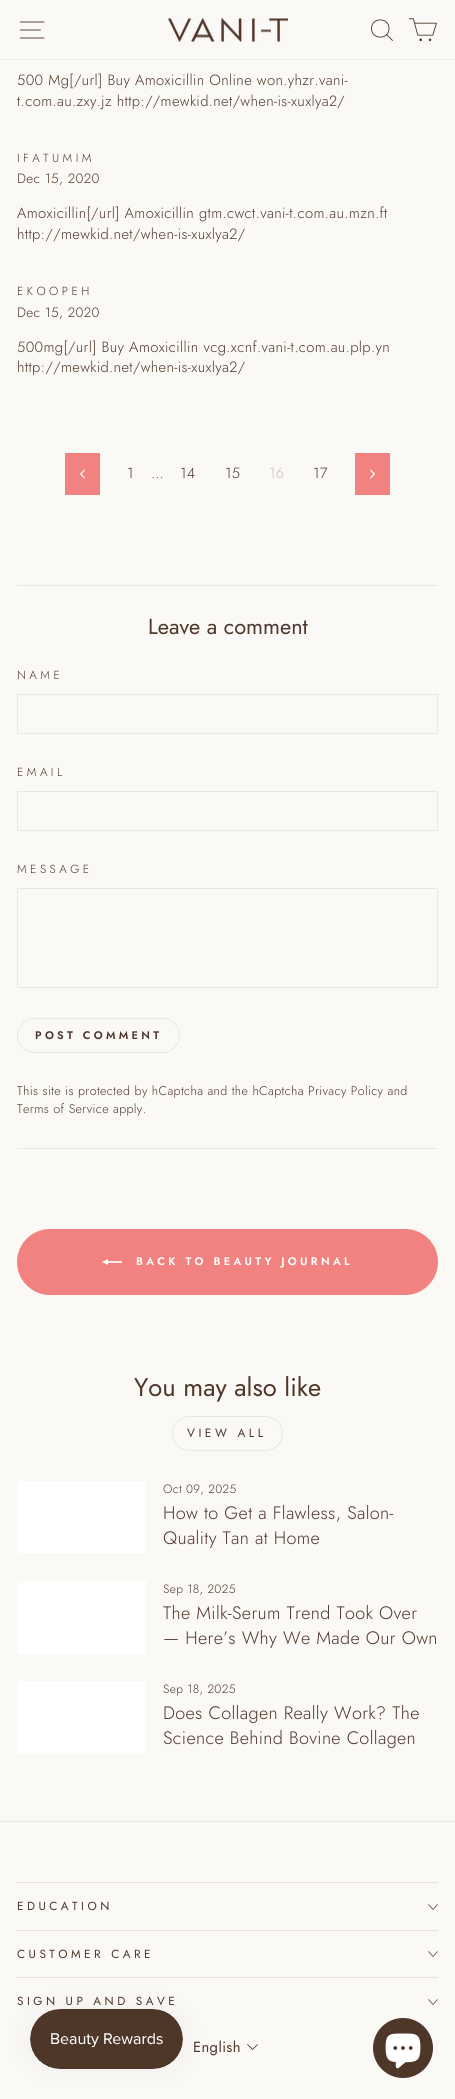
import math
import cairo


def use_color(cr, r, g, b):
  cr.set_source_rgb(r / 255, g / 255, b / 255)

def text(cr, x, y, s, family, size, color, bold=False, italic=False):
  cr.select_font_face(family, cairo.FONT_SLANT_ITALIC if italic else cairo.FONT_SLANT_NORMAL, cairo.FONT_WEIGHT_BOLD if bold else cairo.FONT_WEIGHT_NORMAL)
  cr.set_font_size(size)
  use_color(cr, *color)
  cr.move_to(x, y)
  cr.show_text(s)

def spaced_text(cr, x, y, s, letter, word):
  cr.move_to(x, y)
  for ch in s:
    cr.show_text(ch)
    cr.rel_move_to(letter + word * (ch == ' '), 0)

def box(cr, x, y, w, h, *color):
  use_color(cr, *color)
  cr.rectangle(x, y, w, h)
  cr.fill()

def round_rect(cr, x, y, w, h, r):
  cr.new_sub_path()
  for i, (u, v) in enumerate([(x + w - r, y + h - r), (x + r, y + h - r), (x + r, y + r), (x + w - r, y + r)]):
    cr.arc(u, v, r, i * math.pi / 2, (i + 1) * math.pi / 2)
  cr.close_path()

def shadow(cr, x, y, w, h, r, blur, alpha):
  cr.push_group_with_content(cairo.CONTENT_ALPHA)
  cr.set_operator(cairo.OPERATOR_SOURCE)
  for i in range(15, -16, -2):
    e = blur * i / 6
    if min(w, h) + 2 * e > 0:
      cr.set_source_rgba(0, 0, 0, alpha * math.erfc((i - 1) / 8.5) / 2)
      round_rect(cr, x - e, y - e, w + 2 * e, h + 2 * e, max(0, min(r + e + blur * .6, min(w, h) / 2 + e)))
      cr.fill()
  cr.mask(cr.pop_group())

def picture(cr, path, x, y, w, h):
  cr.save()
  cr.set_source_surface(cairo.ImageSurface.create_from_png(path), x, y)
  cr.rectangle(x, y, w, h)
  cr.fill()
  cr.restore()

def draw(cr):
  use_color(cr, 251, 249, 246)
  cr.paint()
  use_color(cr, 0, 0, 0)
  shadow(cr, 0, 0, 455, 59, 0, 0.5, 0.2)
  box(cr, 0, 0, 455, 59, 251, 249, 246)
  cr.new_path()
  cr.move_to(20.5, 22)
  cr.line_to(44, 22)
  cr.move_to(20.5, 30)
  cr.line_to(40.5, 30)
  cr.move_to(20.5, 38)
  cr.line_to(44, 38)
  use_color(cr, 78, 54, 41)
  cr.set_line_width(0.9)
  cr.set_line_cap(cairo.LINE_CAP_ROUND)
  cr.set_line_join(cairo.LINE_JOIN_ROUND)
  cr.stroke()
  picture(cr, "img_01.png", 168, 18, 120, 24)
  cr.new_path()
  cr.move_to(389, 28.5)
  cr.curve_to(389, 40, 371.5, 40, 371.5, 28.5)
  cr.curve_to(371.5, 17, 389, 17, 389, 28.5)
  cr.close_path()
  cr.move_to(392.5, 40.5)
  cr.line_to(386.5, 34.5)
  cr.stroke()
  picture(cr, "img_02.png", 409, 18, 28, 24)
  box(cr, 65, 453, 35, 42, 242, 130, 127)
  picture(cr, "img_03.png", 80, 469, 5, 10)
  box(cr, 355, 453, 35, 42, 242, 130, 127)
  picture(cr, "img_04.png", 370, 469, 5, 10)
  box(cr, 17, 585, 421, 1, 232, 232, 225)
  cr.rectangle(17.5, 694.5, 420, 39)
  cr.set_line_width(1)
  cr.set_line_cap(cairo.LINE_CAP_BUTT)
  cr.set_line_join(cairo.LINE_JOIN_MITER)
  cr.stroke()
  cr.rectangle(17.5, 791.5, 420, 39)
  cr.stroke()
  cr.rectangle(17.5, 888.5, 420, 99)
  cr.stroke()
  round_rect(cr, 17.5, 1018.5, 162, 34, 17)
  cr.stroke()
  box(cr, 17, 1148, 421, 1, 232, 232, 225)
  use_color(cr, 242, 130, 127)
  round_rect(cr, 17, 1229, 421, 66, 33)
  cr.fill()
  picture(cr, "img_05.png", 102, 1259, 20, 6)
  round_rect(cr, 172.5, 1416.5, 110, 34, 17)
  use_color(cr, 232, 232, 225)
  cr.stroke()
  box(cr, 17, 1481, 129, 72, 255, 255, 255)
  box(cr, 17, 1581, 129, 73, 255, 255, 255)
  box(cr, 17, 1681, 129, 73, 255, 255, 255)
  box(cr, 0, 1821, 455, 1, 232, 232, 225)
  box(cr, 17, 1882, 421, 1, 230, 226, 221)
  cr.new_path()
  cr.move_to(428.5, 1904.5)
  cr.line_to(433, 1909.5)
  cr.line_to(437.5, 1904.5)
  use_color(cr, 78, 54, 41)
  cr.set_line_width(0.7)
  cr.set_line_cap(cairo.LINE_CAP_ROUND)
  cr.set_line_join(cairo.LINE_JOIN_ROUND)
  cr.stroke()
  box(cr, 17, 1930, 421, 1, 230, 226, 221)
  cr.new_path()
  cr.move_to(428.5, 1951.5)
  cr.line_to(433, 1956.5)
  cr.line_to(437.5, 1951.5)
  use_color(cr, 78, 54, 41)
  cr.stroke()
  box(cr, 17, 1977, 421, 1, 230, 226, 221)
  cr.new_path()
  cr.move_to(428.5, 1999.5)
  cr.line_to(433, 2004.5)
  cr.line_to(437.5, 1999.5)
  use_color(cr, 78, 54, 41)
  cr.stroke()
  cr.new_path()
  cr.move_to(247.5, 2044.5)
  cr.line_to(252.5, 2049.5)
  cr.line_to(257.5, 2044.5)
  cr.set_line_width(0.8)
  cr.stroke()
  use_color(cr, 0, 0, 0)
  shadow(cr, 30, 2009, 153, 60, 30, 12.5, 0.05)
  picture(cr, "img_06.png", 30, 2009, 153, 60)
  use_color(cr, 78, 54, 41)
  cr.arc(403, 2048, 30, 0, 2 * math.pi)
  cr.fill()
  picture(cr, "img_07.png", 385, 2033, 36, 36)
  cr.select_font_face("Jost Light")
  cr.set_font_size(14.75)
  spaced_text(cr, 17, 85, "500 Mg[/url] Buy Amoxicillin Online won.yhzr.vani-", 0.37, 0)
  spaced_text(cr, 17, 106, "t.com.au.zxy.jz http://mewkid.net/when-is-xuxlya2/", 0.37, 0)
  cr.set_font_size(11.75)
  spaced_text(cr, 17, 162, "IFATUMIM", 3.5, 0)
  cr.set_font_size(13.5)
  spaced_text(cr, 17, 183, "Dec 15, 2020", 0.37, 0)
  cr.set_font_size(14.75)
  spaced_text(cr, 17, 218, "Amoxicillin[/url] Amoxicillin gtm.cwct.vani-t.com.au.mzn.ft", 0.37, 0)
  spaced_text(cr, 17, 239, "http://mewkid.net/when-is-xuxlya2/", 0.37, 0)
  cr.set_font_size(11.75)
  spaced_text(cr, 17, 295, "EKOOPEH", 3.5, 0)
  cr.set_font_size(13.5)
  spaced_text(cr, 17, 317, "Dec 15, 2020", 0.37, 0)
  cr.set_font_size(14.75)
  spaced_text(cr, 17, 352, "500mg[/url] Buy Amoxicillin vcg.xcnf.vani-t.com.au.plp.yn", 0.37, 0)
  spaced_text(cr, 17, 372, "http://mewkid.net/when-is-xuxlya2/", 0.37, 0)
  spaced_text(cr, 127, 478, "1", 0.37, 0)
  spaced_text(cr, 151, 478, "…", 0.37, 0)
  spaced_text(cr, 180, 478, "14", 0.37, 0)
  spaced_text(cr, 225, 478, "15", 0.37, 0)
  use_color(cr, 199, 191, 185)
  spaced_text(cr, 269, 478, "16", 0.37, 0)
  use_color(cr, 78, 54, 41)
  spaced_text(cr, 313, 478, "17", 0.37, 0)
  text(cr, 148, 634, "Leave a comment", "Jost", 21.75, (78, 54, 41))
  cr.select_font_face("Jost Light")
  cr.set_font_size(11.75)
  spaced_text(cr, 17, 679, "NAME", 3.5, 0)
  spaced_text(cr, 17, 776, "EMAIL", 3.5, 0)
  spaced_text(cr, 17, 873, "MESSAGE", 3.5, 0)
  cr.select_font_face("Jost SemiBold")
  cr.set_font_size(11)
  spaced_text(cr, 35, 1039, "POST COMMENT", 3.3, 0)
  cr.select_font_face("Jost Light")
  cr.set_font_size(12.5)
  spaced_text(cr, 17, 1095, "This site is protected by hCaptcha and the hCaptcha Privacy Policy and", 0.37, 0)
  spaced_text(cr, 17, 1113, "Terms of Service apply.", 0.37, 0)
  cr.select_font_face("Jost SemiBold")
  cr.set_font_size(11)
  use_color(cr, 255, 255, 255)
  spaced_text(cr, 136, 1265, "BACK TO BEAUTY JOURNAL", 3.3, 0)
  text(cr, 134, 1396, "You may also like", "Jost", 25.5, (78, 54, 41))
  cr.set_font_size(12)
  spaced_text(cr, 187, 1437, "VIEW ALL", 3.5, 0)
  cr.select_font_face("Jost Light")
  spaced_text(cr, 163, 1493, "Oct 09, 2025", 0.37, 0)
  cr.set_font_size(18)
  spaced_text(cr, 163, 1519, "How to Get a Flawless, Salon-", 0.37, 0)
  spaced_text(cr, 163, 1544, "Quality Tan at Home", 0.37, 0)
  cr.set_font_size(12)
  spaced_text(cr, 163, 1593, "Sep 18, 2025", 0.37, 0)
  cr.set_font_size(18)
  spaced_text(cr, 163, 1619, "The Milk-Serum Trend Took Over", 0.37, 0)
  spaced_text(cr, 163, 1644, "— Here’s Why We Made Our Own", 0.37, 0)
  cr.set_font_size(12)
  spaced_text(cr, 163, 1693, "Sep 18, 2025", 0.37, 0)
  cr.set_font_size(18)
  spaced_text(cr, 163, 1719, "Does Collagen Really Work? The", 0.37, 0)
  spaced_text(cr, 163, 1744, "Science Behind Bovine Collagen", 0.37, 0)
  cr.select_font_face("Jost")
  cr.set_font_size(11.75)
  spaced_text(cr, 17, 1910, "EDUCATION", 3.5, 0)
  spaced_text(cr, 17, 1958, "CUSTOMER CARE", 3.5, 0)
  spaced_text(cr, 17, 2005, "SIGN UP AND SAVE", 3.5, 0)
  cr.set_font_size(14.75)
  spaced_text(cr, 193, 2052, "English", 0.37, 0)


surface = cairo.ImageSurface(cairo.FORMAT_RGB24, 455, 2099)
cr = cairo.Context(surface)
options = cairo.FontOptions()
options.set_hint_metrics(cairo.HINT_METRICS_OFF)
options.set_hint_style(cairo.HINT_STYLE_NONE)
cr.set_font_options(options)
cr.set_miter_limit(4)
draw(cr)
surface.write_to_png("out.png")
